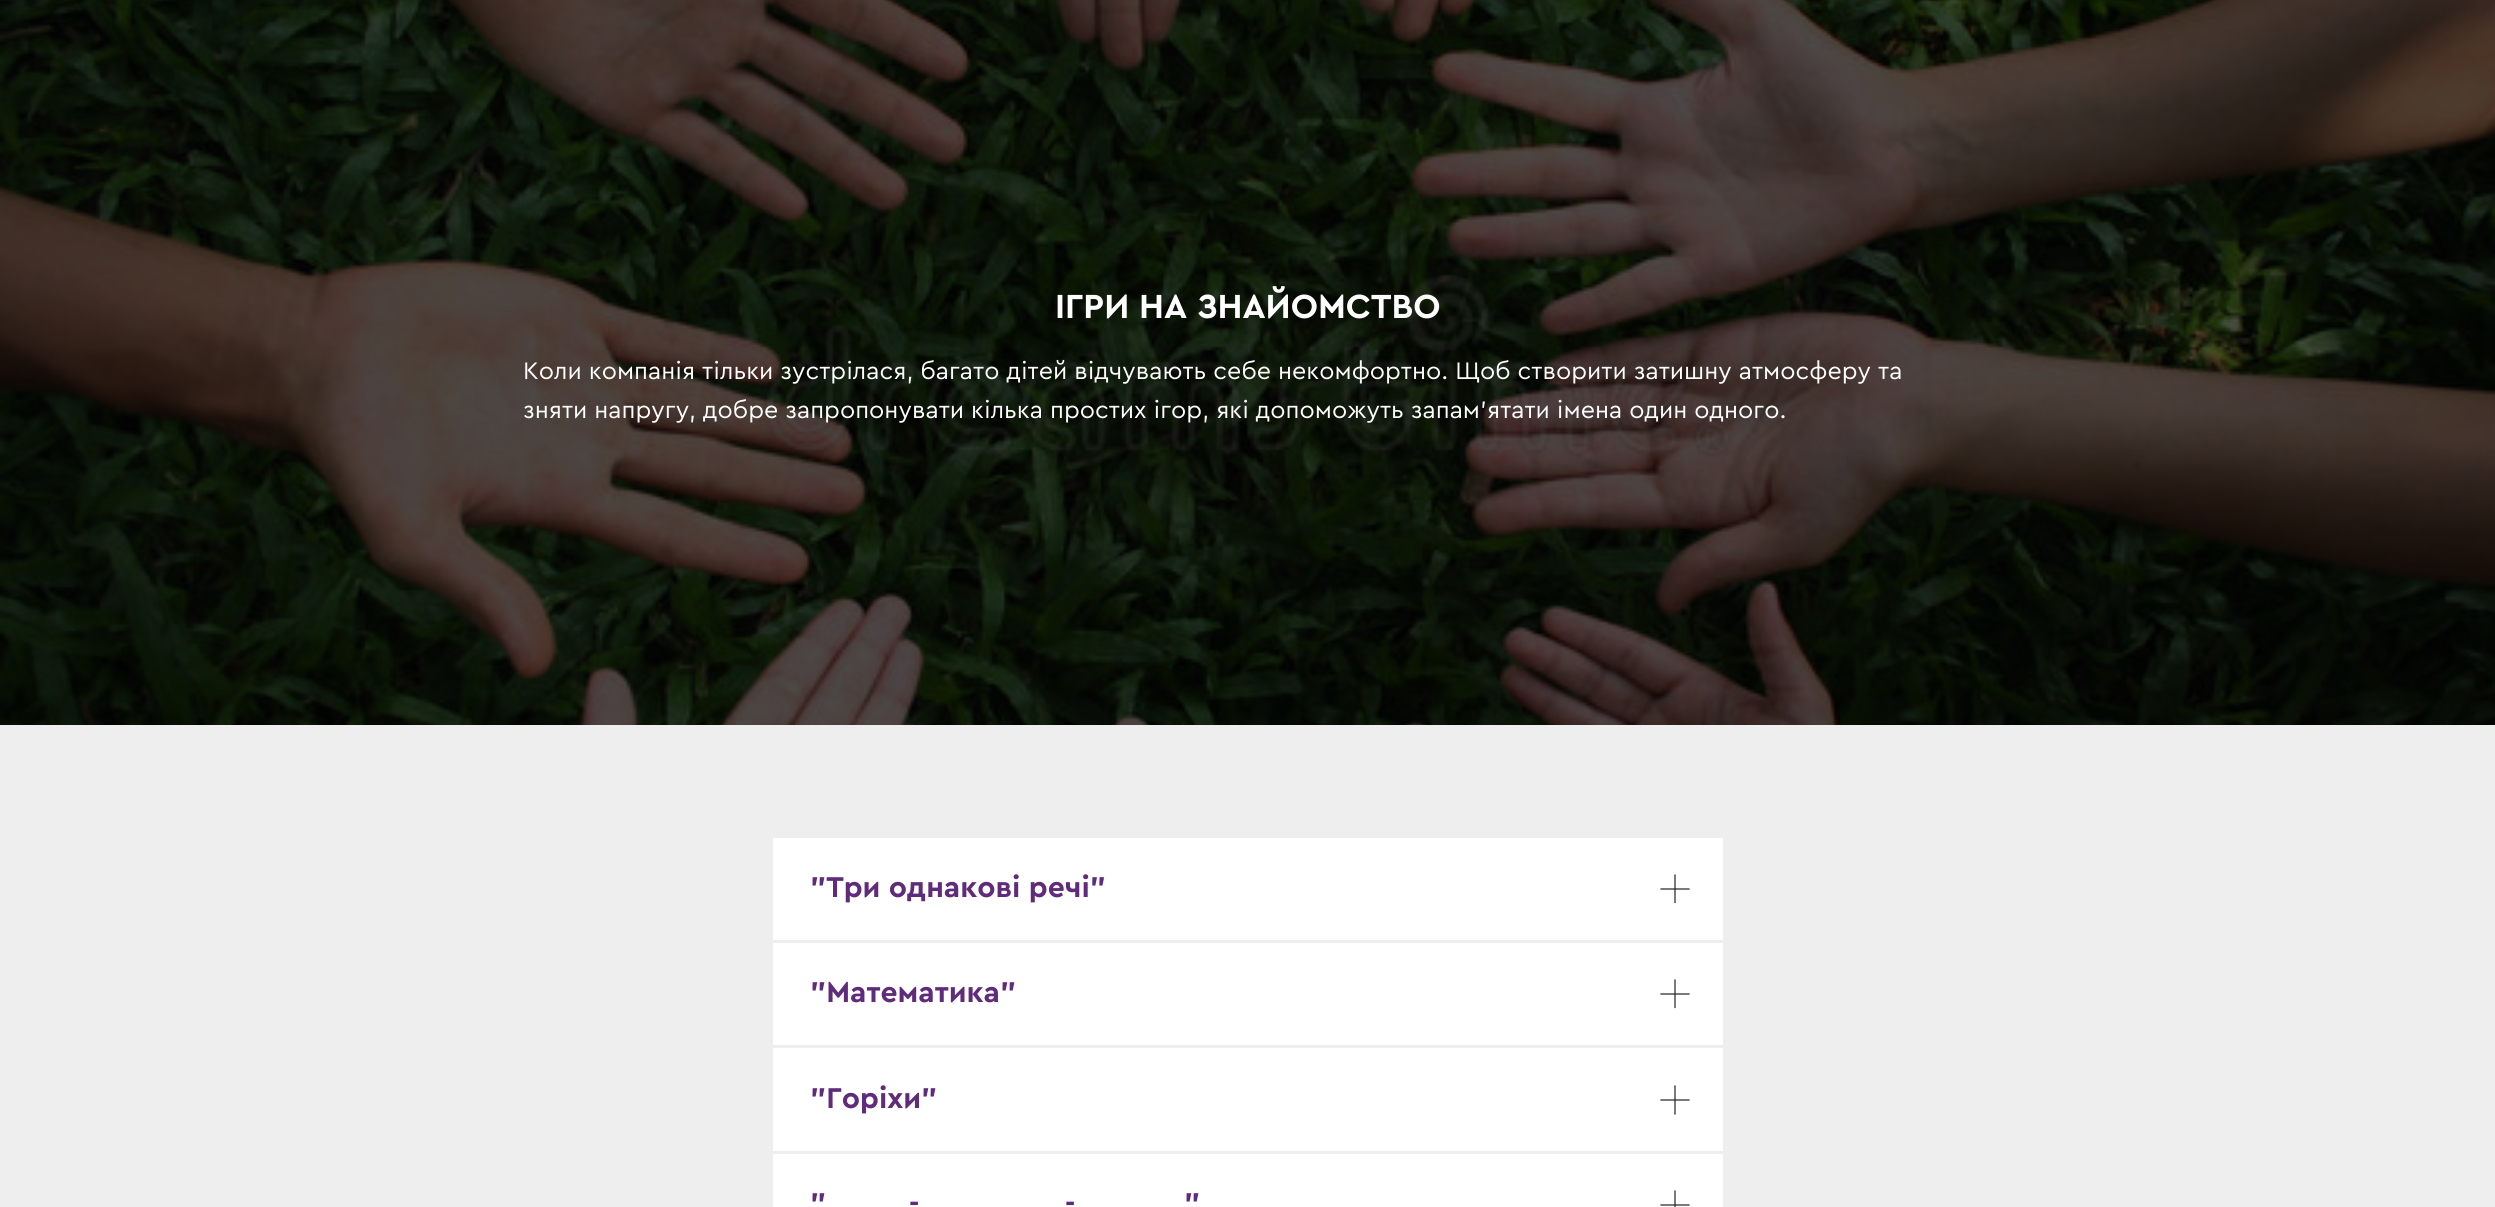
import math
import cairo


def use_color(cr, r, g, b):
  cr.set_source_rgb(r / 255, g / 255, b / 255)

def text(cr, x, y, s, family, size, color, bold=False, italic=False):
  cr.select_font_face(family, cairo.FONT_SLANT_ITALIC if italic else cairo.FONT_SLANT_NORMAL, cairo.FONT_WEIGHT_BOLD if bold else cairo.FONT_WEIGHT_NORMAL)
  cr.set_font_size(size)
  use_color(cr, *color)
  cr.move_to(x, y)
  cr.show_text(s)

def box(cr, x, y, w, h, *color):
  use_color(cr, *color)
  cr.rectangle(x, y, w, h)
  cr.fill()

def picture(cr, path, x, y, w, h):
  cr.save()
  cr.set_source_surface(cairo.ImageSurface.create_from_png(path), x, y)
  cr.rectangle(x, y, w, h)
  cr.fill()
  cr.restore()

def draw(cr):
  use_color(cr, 238, 238, 238)
  cr.paint()
  picture(cr, "img_01.png", 0, 0, 2495, 725)
  box(cr, 773, 838, 950, 102, 255, 255, 255)
  cr.new_path()
  cr.move_to(1661, 889)
  cr.line_to(1689, 889)
  cr.move_to(1675, 875)
  cr.line_to(1675, 902.5)
  use_color(cr, 34, 34, 34)
  cr.set_line_width(1.2)
  cr.set_line_cap(cairo.LINE_CAP_SQUARE)
  cr.stroke()
  box(cr, 773, 943, 950, 102, 255, 255, 255)
  cr.new_path()
  cr.move_to(1661, 994)
  cr.line_to(1689, 994)
  cr.move_to(1675, 980)
  cr.line_to(1675, 1007.5)
  use_color(cr, 34, 34, 34)
  cr.stroke()
  box(cr, 773, 1048, 950, 103, 255, 255, 255)
  cr.new_path()
  cr.move_to(1661, 1100)
  cr.line_to(1689, 1100)
  cr.move_to(1675, 1086)
  cr.line_to(1675, 1114)
  use_color(cr, 34, 34, 34)
  cr.stroke()
  box(cr, 773, 1154, 950, 53, 255, 255, 255)
  cr.new_path()
  cr.move_to(1661, 1205)
  cr.line_to(1689, 1205)
  cr.move_to(1675, 1191)
  cr.line_to(1675, 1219)
  use_color(cr, 34, 34, 34)
  cr.stroke()
  text(cr, 1055, 318, "ІГРИ НА ЗНАЙОМСТВО", "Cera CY", 35, (255, 255, 255), bold=True)
  text(cr, 523, 379, "Коли компанія тільки зустрілася, багато дітей відчувають себе некомфортно. Щоб створити затишну атмосферу та", "Cera CY", 25, (255, 255, 255))
  text(cr, 523, 418, "зняти напругу, добре запропонувати кілька простих ігор, які допоможуть запам'ятати імена один одного.", "Cera CY", 25, (255, 255, 255))
  text(cr, 810, 897, "\"Три однакові речі\"", "Cera CY", 30, (96, 43, 122), bold=True)
  text(cr, 810, 1002, "\"Математика\"", "Cera CY", 30, (96, 43, 122), bold=True)
  text(cr, 810, 1108, "\"Горіхи\"", "Cera CY", 30, (96, 43, 122), bold=True)
  text(cr, 810, 1213, "\"", "Cera CY", 30, (96, 43, 122), bold=True)
  text(cr, 1184, 1213, "\"", "Cera CY", 30, (96, 43, 122), bold=True)
  text(cr, 909, 1213, "-", "Cera CY", 30, (96, 43, 122), bold=True)
  text(cr, 1065, 1213, "-", "Cera CY", 30, (96, 43, 122), bold=True)


surface = cairo.ImageSurface(cairo.FORMAT_RGB24, 2495, 1207)
cr = cairo.Context(surface)
options = cairo.FontOptions()
options.set_hint_metrics(cairo.HINT_METRICS_OFF)
options.set_hint_style(cairo.HINT_STYLE_NONE)
cr.set_font_options(options)
cr.set_miter_limit(4)
draw(cr)
surface.write_to_png("out.png")
